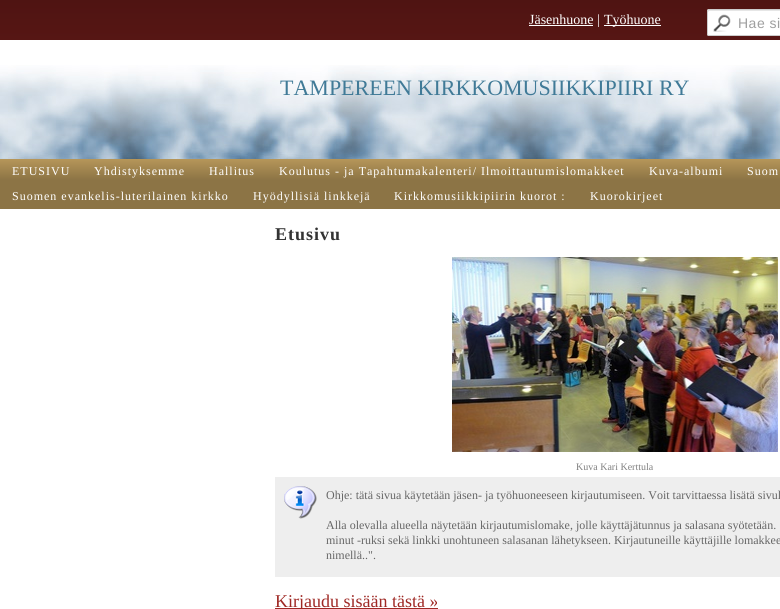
import math
import cairo


def use_color(cr, r, g, b):
  cr.set_source_rgb(r / 255, g / 255, b / 255)

def text(cr, x, y, s, family, size, color, bold=False, italic=False):
  cr.select_font_face(family, cairo.FONT_SLANT_ITALIC if italic else cairo.FONT_SLANT_NORMAL, cairo.FONT_WEIGHT_BOLD if bold else cairo.FONT_WEIGHT_NORMAL)
  cr.set_font_size(size)
  use_color(cr, *color)
  cr.move_to(x, y)
  cr.show_text(s)

def spaced_text(cr, x, y, s, letter, word):
  cr.move_to(x, y)
  for ch in s:
    cr.show_text(ch)
    cr.rel_move_to(letter + word * (ch == ' '), 0)

def box(cr, x, y, w, h, *color):
  use_color(cr, *color)
  cr.rectangle(x, y, w, h)
  cr.fill()

def round_rect(cr, x, y, w, h, r):
  cr.new_sub_path()
  for i, (u, v) in enumerate([(x + w - r, y + h - r), (x + r, y + h - r), (x + r, y + r), (x + w - r, y + r)]):
    cr.arc(u, v, r, i * math.pi / 2, (i + 1) * math.pi / 2)
  cr.close_path()

def picture(cr, path, x, y, w, h):
  cr.save()
  cr.set_source_surface(cairo.ImageSurface.create_from_png(path), x, y)
  cr.rectangle(x, y, w, h)
  cr.fill()
  cr.restore()

def draw(cr):
  use_color(cr, 255, 255, 255)
  cr.paint()
  gradient = cairo.LinearGradient(390, 0, 390, 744)
  gradient.add_color_stop_rgba(0, 0.31, 0.078, 0.071, 1)
  gradient.add_color_stop_rgba(0.6, 0.624, 0.161, 0.145, 1)
  gradient.add_color_stop_rgba(1, 0.624, 0.161, 0.145, 1)
  cr.set_source(gradient)
  cr.rectangle(0, 0, 780, 40)
  cr.fill()
  box(cr, 529, 25, 64, 1, 255, 255, 255)
  box(cr, 604, 25, 57, 1, 255, 255, 255)
  round_rect(cr, 707, 9, 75, 27, 2)
  cr.fill()
  picture(cr, "img_01.png", 713, 14, 18, 18)
  use_color(cr, 230, 230, 230)
  cr.new_path()
  cr.move_to(709, 11)
  cr.line_to(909, 11)
  cr.line_to(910, 13)
  cr.curve_to(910, 12, 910, 10, 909, 10)
  cr.line_to(708, 10)
  cr.line_to(708, 12)
  cr.close_path()
  cr.fill()
  round_rect(cr, 707.5, 9.5, 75, 26, 1.5)
  use_color(cr, 204, 204, 204)
  cr.set_line_width(1)
  cr.stroke()
  picture(cr, "img_02.png", 0, 65, 780, 94)
  gradient = cairo.LinearGradient(485, 159, 485, 209)
  gradient.add_color_stop_rgba(0, 0.714, 0.588, 0.349, 1)
  gradient.add_color_stop_rgba(0.42, 0.549, 0.455, 0.271, 1)
  gradient.add_color_stop_rgba(1, 0.549, 0.455, 0.271, 1)
  cr.set_source(gradient)
  cr.rectangle(0, 159, 780, 50)
  cr.fill()
  picture(cr, "img_03.png", 452, 257, 326, 195)
  box(cr, 275, 477, 505, 100, 238, 238, 238)
  picture(cr, "img_04.png", 284, 486, 33, 33)
  box(cr, 275, 608, 163, 1, 159, 41, 37)
  text(cr, 529, 24, "Jäsenhuone", "Liberation Serif", 14, (255, 255, 255))
  text(cr, 597, 24, "|", "Liberation Serif", 14, (255, 255, 255))
  text(cr, 604, 24, "Työhuone", "Liberation Serif", 14, (255, 255, 255))
  cr.select_font_face("Liberation Sans")
  use_color(cr, 159, 159, 159)
  spaced_text(cr, 738, 28, "Hae si", 0.5, 0)
  text(cr, 280, 95, "TAMPEREEN KIRKKOMUSIIKKIPIIRI RY", "Liberation Serif", 22, (64, 122, 151))
  cr.set_font_size(12)
  use_color(cr, 255, 255, 255)
  spaced_text(cr, 12, 175, "ETUSIVU", 1, 0)
  spaced_text(cr, 94, 175, "Yhdistyksemme", 1, 0)
  spaced_text(cr, 209, 175, "Hallitus", 1, 0)
  spaced_text(cr, 279, 175, "Koulutus - ja Tapahtumakalenteri/ Ilmoittautumislomakkeet", 1, 0)
  spaced_text(cr, 649, 175, "Kuva-albumi", 1, 0)
  spaced_text(cr, 747, 175, "Suom", 1, 0)
  spaced_text(cr, 12, 200, "Suomen evankelis-luterilainen kirkko", 1, 0)
  spaced_text(cr, 253, 200, "Hyödyllisiä linkkejä", 1, 0)
  spaced_text(cr, 394, 200, "Kirkkomusiikkipiirin kuorot :", 1, 0)
  spaced_text(cr, 590, 200, "Kuorokirjeet", 1, 0)
  cr.select_font_face("Liberation Serif", cairo.FONT_SLANT_NORMAL, cairo.FONT_WEIGHT_BOLD)
  cr.set_font_size(18)
  use_color(cr, 51, 51, 51)
  spaced_text(cr, 275, 240, "Etusivu", 1, 0)
  text(cr, 576, 470, "Kuva Kari Kerttula", "Liberation Serif", 10, (128, 128, 128))
  text(cr, 326, 499, "Ohje: tätä sivua käytetään jäsen- ja työhuoneeseen kirjautumiseen. Voit tarvittaessa lisätä sivul", "Liberation Serif", 12, (102, 102, 102))
  text(cr, 326, 529, "Alla olevalla alueella näytetään kirjautumislomake, jolle käyttäjätunnus ja salasana syötetään.", "Liberation Serif", 12, (102, 102, 102))
  text(cr, 326, 544, "minut -ruksi sekä linkki unohtuneen salasanan lähetykseen. Kirjautuneille käyttäjille lomakkee", "Liberation Serif", 12, (102, 102, 102))
  text(cr, 326, 559, "nimellä..\".", "Liberation Serif", 12, (102, 102, 102))
  text(cr, 275, 607, "Kirjaudu sisään tästä »", "Liberation Serif", 18, (159, 41, 37))


surface = cairo.ImageSurface(cairo.FORMAT_RGB24, 780, 609)
cr = cairo.Context(surface)
options = cairo.FontOptions()
options.set_hint_metrics(cairo.HINT_METRICS_OFF)
options.set_hint_style(cairo.HINT_STYLE_NONE)
cr.set_font_options(options)
cr.set_miter_limit(4)
draw(cr)
surface.write_to_png("out.png")
